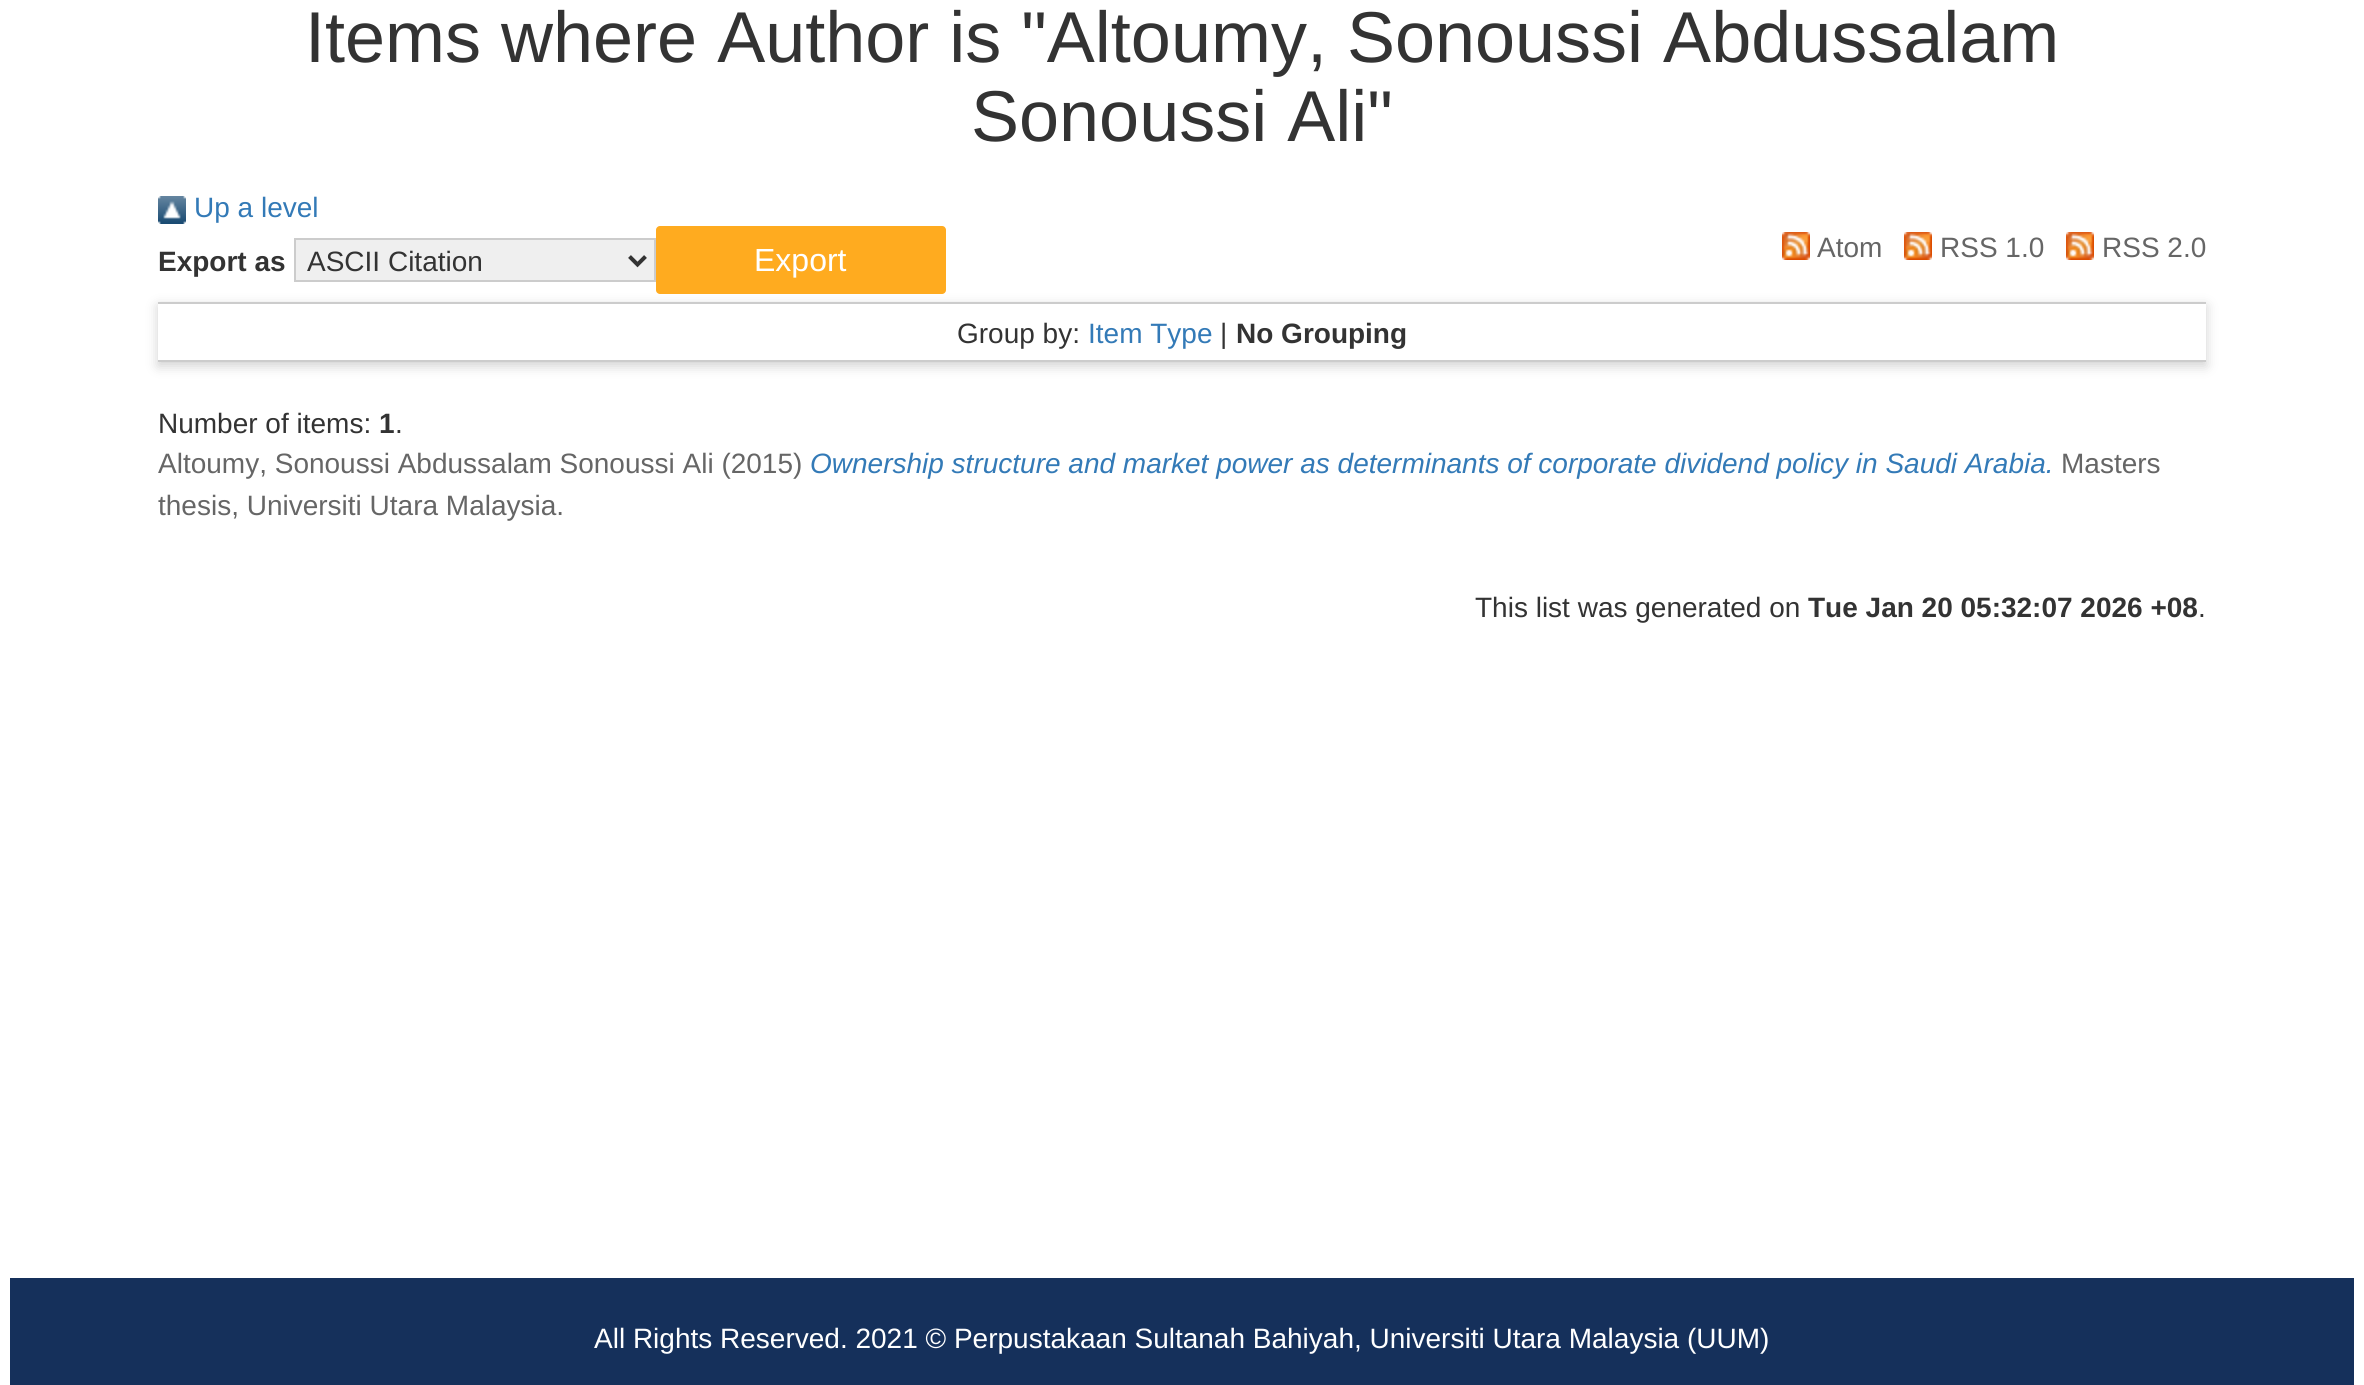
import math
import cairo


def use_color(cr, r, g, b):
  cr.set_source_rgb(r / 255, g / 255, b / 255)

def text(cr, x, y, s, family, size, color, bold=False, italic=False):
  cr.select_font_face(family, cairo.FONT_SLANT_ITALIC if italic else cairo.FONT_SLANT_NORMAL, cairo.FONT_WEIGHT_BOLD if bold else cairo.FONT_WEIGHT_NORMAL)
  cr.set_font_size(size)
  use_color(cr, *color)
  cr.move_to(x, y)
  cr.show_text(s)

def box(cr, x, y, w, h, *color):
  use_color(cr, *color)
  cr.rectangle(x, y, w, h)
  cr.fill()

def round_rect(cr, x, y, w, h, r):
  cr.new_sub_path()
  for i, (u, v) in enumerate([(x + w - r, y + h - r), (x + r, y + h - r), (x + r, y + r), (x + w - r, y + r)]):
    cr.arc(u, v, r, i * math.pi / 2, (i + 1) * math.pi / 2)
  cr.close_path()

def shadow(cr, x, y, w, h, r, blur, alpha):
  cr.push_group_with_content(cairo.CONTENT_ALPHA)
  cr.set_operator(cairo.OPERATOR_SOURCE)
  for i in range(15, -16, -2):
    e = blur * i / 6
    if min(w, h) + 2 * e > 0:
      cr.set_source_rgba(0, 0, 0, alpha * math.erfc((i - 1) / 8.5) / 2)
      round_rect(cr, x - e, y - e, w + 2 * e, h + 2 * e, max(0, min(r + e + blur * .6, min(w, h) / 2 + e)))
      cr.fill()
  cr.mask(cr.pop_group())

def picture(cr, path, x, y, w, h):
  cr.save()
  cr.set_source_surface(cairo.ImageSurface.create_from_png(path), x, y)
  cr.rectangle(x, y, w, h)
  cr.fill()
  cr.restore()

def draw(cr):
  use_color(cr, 255, 255, 255)
  cr.paint()
  picture(cr, "img_01.png", 158, 196, 28, 28)
  use_color(cr, 239, 239, 239)
  cr.rectangle(295, 239, 360, 42)
  cr.fill_preserve()
  use_color(cr, 204, 204, 204)
  cr.stroke()
  cr.new_path()
  cr.move_to(629.5, 256.5)
  cr.line_to(637.5, 264.5)
  cr.line_to(645.5, 256.5)
  use_color(cr, 51, 51, 51)
  cr.set_line_width(4)
  cr.stroke()
  cr.save()
  cr.set_fill_rule(cairo.FILL_RULE_EVEN_ODD)
  cr.new_path()
  cr.move_to(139, 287)
  cr.line_to(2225, 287)
  cr.line_to(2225, 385)
  cr.line_to(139, 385)
  cr.close_path()
  cr.move_to(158, 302)
  cr.line_to(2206, 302)
  cr.line_to(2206, 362)
  cr.line_to(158, 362)
  cr.close_path()
  cr.clip()
  use_color(cr, 100, 100, 100)
  shadow(cr, 158, 306, 2048, 60, 0, 6, 0.3)
  cr.restore()
  use_color(cr, 255, 171, 31)
  round_rect(cr, 656, 226, 290, 68, 4)
  cr.fill()
  picture(cr, "img_02.png", 1782, 232, 28, 28)
  picture(cr, "img_02.png", 1904, 232, 28, 28)
  picture(cr, "img_02.png", 2066, 232, 28, 28)
  box(cr, 158, 302, 2048, 2, 204, 204, 204)
  box(cr, 158, 360, 2048, 2, 204, 204, 204)
  box(cr, 10, 1278, 2344, 107, 21, 48, 91)
  text(cr, 305, 62, "Items where Author is \"Altoumy, Sonoussi Abdussalam", "Liberation Sans", 72, (51, 51, 51))
  text(cr, 971, 141, "Sonoussi Ali\"", "Liberation Sans", 72, (51, 51, 51))
  text(cr, 194, 217, "Up a level", "Liberation Sans", 28, (51, 122, 183))
  text(cr, 158, 271, "Export as", "Liberation Sans", 28, (51, 51, 51), bold=True)
  text(cr, 307, 271, "ASCII Citation", "Liberation Sans", 28, (51, 51, 51))
  text(cr, 754, 271, "Export", "Liberation Sans", 32, (255, 255, 255))
  text(cr, 1817, 257, "Atom", "Liberation Sans", 28, (102, 102, 102))
  text(cr, 1940, 257, "RSS 1.0", "Liberation Sans", 28, (102, 102, 102))
  text(cr, 2102, 257, "RSS 2.0", "Liberation Sans", 28, (102, 102, 102))
  text(cr, 957, 343, "Group by:", "Liberation Sans", 28, (51, 51, 51))
  text(cr, 1088, 343, "Item Type", "Liberation Sans", 28, (51, 122, 183))
  text(cr, 1220, 343, "|", "Liberation Sans", 28, (51, 51, 51))
  text(cr, 1236, 343, "No Grouping", "Liberation Sans", 28, (51, 51, 51), bold=True)
  text(cr, 158, 433, "Number of items:", "Liberation Sans", 28, (51, 51, 51))
  text(cr, 379, 433, "1", "Liberation Sans", 28, (51, 51, 51), bold=True)
  text(cr, 395, 433, ".", "Liberation Sans", 28, (51, 51, 51))
  text(cr, 158, 473, "Altoumy, Sonoussi Abdussalam Sonoussi Ali (2015)", "Liberation Sans", 28, (102, 102, 102))
  text(cr, 810, 473, "Ownership structure and market power as determinants of corporate dividend policy in Saudi Arabia.", "Liberation Sans", 28, (51, 122, 183), italic=True)
  text(cr, 2061, 473, "Masters", "Liberation Sans", 28, (102, 102, 102))
  text(cr, 158, 515, "thesis, Universiti Utara Malaysia.", "Liberation Sans", 28, (102, 102, 102))
  text(cr, 1475, 617, "This list was generated on", "Liberation Sans", 28, (51, 51, 51))
  text(cr, 1808, 617, "Tue Jan 20 05:32:07 2026 +08", "Liberation Sans", 28, (51, 51, 51), bold=True)
  text(cr, 2198, 617, ".", "Liberation Sans", 28, (51, 51, 51))
  text(cr, 594, 1348, "All Rights Reserved. 2021 © Perpustakaan Sultanah Bahiyah, Universiti Utara Malaysia (UUM)", "Liberation Sans", 28, (255, 255, 255))


surface = cairo.ImageSurface(cairo.FORMAT_RGB24, 2364, 1385)
cr = cairo.Context(surface)
options = cairo.FontOptions()
options.set_hint_metrics(cairo.HINT_METRICS_OFF)
options.set_hint_style(cairo.HINT_STYLE_NONE)
cr.set_font_options(options)
cr.set_miter_limit(4)
draw(cr)
surface.write_to_png("out.png")
